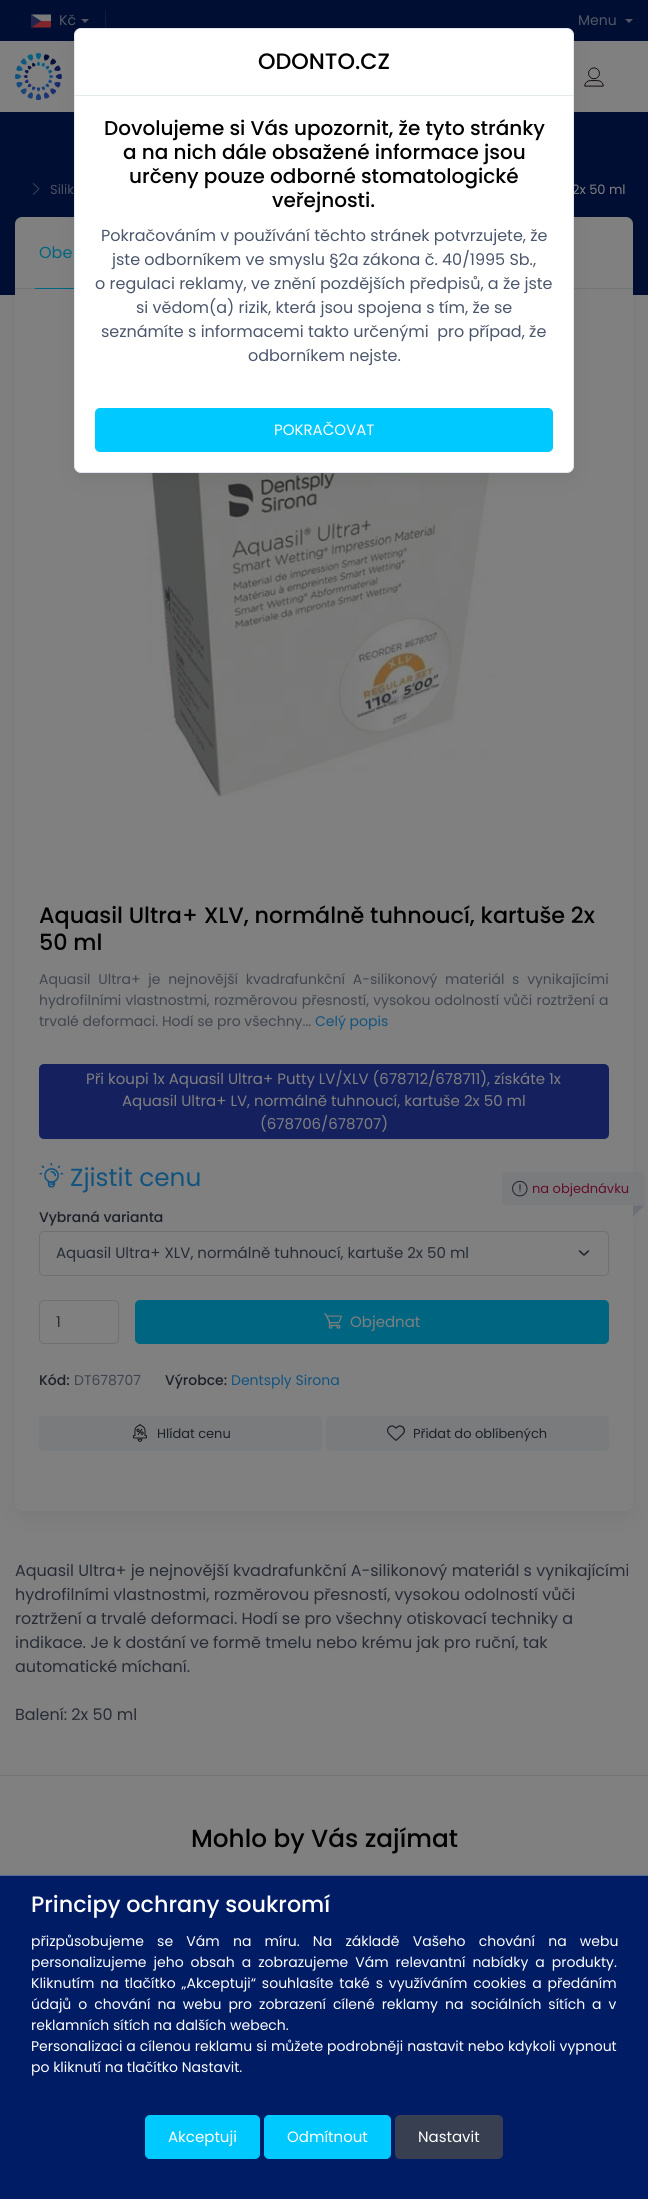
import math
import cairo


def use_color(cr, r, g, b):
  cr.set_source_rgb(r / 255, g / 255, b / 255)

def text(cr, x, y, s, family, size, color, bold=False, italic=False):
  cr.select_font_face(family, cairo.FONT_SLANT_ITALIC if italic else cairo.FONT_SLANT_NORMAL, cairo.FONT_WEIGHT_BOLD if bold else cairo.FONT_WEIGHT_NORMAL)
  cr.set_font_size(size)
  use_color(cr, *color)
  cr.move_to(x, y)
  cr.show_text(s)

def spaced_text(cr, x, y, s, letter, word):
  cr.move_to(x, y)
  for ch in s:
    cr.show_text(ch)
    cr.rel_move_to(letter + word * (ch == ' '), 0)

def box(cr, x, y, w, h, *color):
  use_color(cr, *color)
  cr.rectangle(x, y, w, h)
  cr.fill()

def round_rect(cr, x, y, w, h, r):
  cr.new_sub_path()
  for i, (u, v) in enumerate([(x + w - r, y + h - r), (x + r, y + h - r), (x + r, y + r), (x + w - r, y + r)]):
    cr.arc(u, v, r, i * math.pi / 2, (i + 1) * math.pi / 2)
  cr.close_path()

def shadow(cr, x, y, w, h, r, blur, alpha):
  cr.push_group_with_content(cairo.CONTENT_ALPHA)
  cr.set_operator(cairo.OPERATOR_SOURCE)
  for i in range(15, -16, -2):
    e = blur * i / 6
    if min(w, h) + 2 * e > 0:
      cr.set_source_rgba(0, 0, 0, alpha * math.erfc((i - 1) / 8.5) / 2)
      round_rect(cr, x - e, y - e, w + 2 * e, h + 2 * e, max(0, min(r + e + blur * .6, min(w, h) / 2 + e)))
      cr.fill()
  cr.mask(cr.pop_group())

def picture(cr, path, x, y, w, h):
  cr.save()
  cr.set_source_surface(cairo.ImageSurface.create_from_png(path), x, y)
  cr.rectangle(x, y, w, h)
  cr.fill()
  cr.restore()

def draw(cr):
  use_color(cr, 128, 128, 128)
  cr.paint()
  box(cr, 0, 0, 648, 41, 0, 14, 51)
  box(cr, 105, 10, 1, 21, 16, 28, 60)
  picture(cr, "img_01.png", 31, 14, 20, 14)
  use_color(cr, 83, 88, 101)
  cr.new_path()
  cr.move_to(81, 19)
  cr.line_to(89, 19)
  cr.line_to(85, 23)
  cr.close_path()
  cr.fill()
  cr.new_path()
  cr.move_to(625, 19)
  cr.line_to(633, 19)
  cr.line_to(629, 23)
  cr.close_path()
  cr.fill()
  picture(cr, "img_02.png", 15, 53, 47, 47)
  picture(cr, "img_03.png", 584, 67, 20, 20)
  box(cr, 0, 112, 648, 183, 0, 14, 51)
  use_color(cr, 0, 0, 0)
  shadow(cr, 21, 228, 606, 1282, 1, 12, 0.1)
  use_color(cr, 128, 128, 128)
  round_rect(cr, 15, 217, 618, 1294, 7)
  cr.fill()
  box(cr, 15, 288, 618, 1, 114, 117, 120)
  box(cr, 35, 288, 39, 1, 0, 101, 128)
  picture(cr, "img_05.png", 146, 473, 350, 324)
  use_color(cr, 0, 0, 0)
  shadow(cr, 80, 39, 488, 433, 1, 12, 0.1)
  box(cr, 0, 1876, 648, 323, 0, 28, 101)
  box(cr, 0, 1875, 648, 1, 89, 107, 155)
  use_color(cr, 0, 201, 255)
  round_rect(cr, 145.5, 2115.5, 114, 43, 4.5)
  cr.fill_preserve()
  cr.set_line_width(1)
  cr.stroke()
  round_rect(cr, 264.5, 2115.5, 126, 43, 4.5)
  cr.fill_preserve()
  cr.stroke()
  use_color(cr, 55, 63, 80)
  round_rect(cr, 395.5, 2115.5, 107, 43, 4.5)
  cr.fill_preserve()
  cr.stroke()
  picture(cr, "img_04.png", 33, 183, 7, 12)
  use_color(cr, 21, 32, 94)
  round_rect(cr, 39, 1064, 570, 75, 5)
  cr.fill()
  picture(cr, "img_06.png", 39, 1162, 25, 26)
  use_color(cr, 122, 123, 125)
  cr.new_path()
  cr.move_to(507, 1172)
  cr.line_to(645, 1172)
  cr.line_to(645, 1205)
  cr.line_to(507, 1205)
  cr.curve_to(504, 1205, 502, 1203, 502, 1200)
  cr.line_to(502, 1177)
  cr.curve_to(502, 1174, 504, 1172, 507, 1172)
  cr.close_path()
  cr.fill()
  picture(cr, "img_07.png", 512, 1180, 16, 17)
  use_color(cr, 108, 111, 118)
  cr.new_path()
  cr.move_to(644.5, 1205.5)
  cr.line_to(633, 1216.5)
  cr.line_to(633, 1205.5)
  cr.close_path()
  cr.fill()
  cr.new_path()
  cr.move_to(579.5, 1251)
  cr.line_to(584, 1255)
  cr.line_to(588.5, 1251)
  use_color(cr, 28, 32, 40)
  cr.set_line_width(1.5)
  cr.set_line_cap(cairo.LINE_CAP_ROUND)
  cr.set_line_join(cairo.LINE_JOIN_ROUND)
  cr.stroke()
  round_rect(cr, 39.5, 1231.5, 569, 44, 4.5)
  use_color(cr, 109, 113, 116)
  cr.set_line_width(1)
  cr.set_line_cap(cairo.LINE_CAP_BUTT)
  cr.set_line_join(cairo.LINE_JOIN_MITER)
  cr.stroke()
  round_rect(cr, 39.5, 1300.5, 79, 43, 4.5)
  cr.stroke()
  use_color(cr, 0, 101, 128)
  round_rect(cr, 135.5, 1300.5, 473, 43, 4.5)
  cr.fill_preserve()
  cr.stroke()
  picture(cr, "img_08.png", 324, 1313, 18, 16)
  use_color(cr, 122, 123, 125)
  round_rect(cr, 39, 1416, 283, 35, 4)
  cr.fill()
  picture(cr, "img_09.png", 133, 1424, 14, 18)
  round_rect(cr, 326, 1416, 283, 35, 4)
  cr.fill()
  picture(cr, "img_10.png", 387, 1425, 18, 16)
  box(cr, 0, 1775, 648, 1, 114, 117, 120)
  text(cr, 59, 25, "Kč", "Poppins", 14, (83, 88, 101))
  text(cr, 578, 25, "Menu", "Poppins", 14, (83, 88, 101))
  text(cr, 31, 1912, "Principy ochrany soukromí", "Poppins Medium", 22.3, (255, 255, 255))
  cr.select_font_face("Poppins")
  cr.set_font_size(14)
  spaced_text(cr, 31, 1946, "přizpůsobujeme se Vám na míru. Na základě Vašeho chování na webu", 0, 9.5)
  spaced_text(cr, 31, 1967, "personalizujeme jeho obsah a zobrazujeme Vám relevantní nabídky a produkty.", 0, 3.25)
  spaced_text(cr, 31, 1988, "Kliknutím na tlačítko „Akceptuji“ souhlasíte také s využíváním cookies a předáním", 0, 2.1)
  spaced_text(cr, 31, 2009, "údajů o chování na webu pro zobrazení cílené reklamy na sociálních sítích a v", 0, 3.25)
  text(cr, 31, 2030, "reklamních sítích na dalších webech.", "Poppins", 14, (255, 255, 255))
  spaced_text(cr, 31, 2051, "Personalizaci a cílenou reklamu si můžete podrobněji nastavit nebo kdykoli vypnout", 0, 0.25)
  text(cr, 31, 2072, "po kliknutí na tlačítko Nastavit.", "Poppins", 14, (255, 255, 255))
  text(cr, 168, 2142, "Akceptuji", "Poppins", 15, (255, 255, 255))
  text(cr, 287, 2142, "Odmítnout", "Poppins", 15, (255, 255, 255))
  text(cr, 418, 2142, "Nastavit", "Poppins", 15, (255, 255, 255))
  text(cr, 50, 194, "Silik", "Poppins", 13, (77, 82, 97))
  text(cr, 572, 194, "2x 50 ml", "Poppins", 13, (128, 128, 128))
  use_color(cr, 255, 255, 255)
  round_rect(cr, 74.5, 28.5, 499, 444, 6.5)
  cr.fill_preserve()
  use_color(cr, 227, 233, 239)
  cr.stroke()
  use_color(cr, 0, 201, 255)
  round_rect(cr, 95.5, 408.5, 457, 43, 4.5)
  cr.fill_preserve()
  cr.stroke()
  text(cr, 274, 435, "POKRAČOVAT", "Poppins", 15, (255, 255, 255))
  text(cr, 248, 361, "odborníkem nejste.", "Poppins", 16, (75, 86, 107))
  text(cr, 101, 337, "seznámíte s informacemi takto určenými  pro případ, že", "Poppins", 16, (75, 86, 107))
  text(cr, 136, 313, "si vědom(a) rizik, která jsou spojena s tím, že se", "Poppins", 16, (75, 86, 107))
  text(cr, 95, 289, "o regulaci reklamy, ve znění pozdějších předpisů, a že jste", "Poppins", 16, (75, 86, 107))
  text(cr, 112, 265, "jste odborníkem ve smyslu §2a zákona č. 40/1995 Sb.,", "Poppins", 16, (75, 86, 107))
  text(cr, 101, 241, "Pokračováním v používání těchto stránek potvrzujete, že", "Poppins", 16, (75, 86, 107))
  text(cr, 272, 207, "veřejnosti.", "Poppins Medium", 20, (0, 0, 0))
  text(cr, 129, 183, "určeny pouze odborné stomatologické", "Poppins Medium", 20, (0, 0, 0))
  text(cr, 123, 159, "a na nich dále obsažené informace jsou", "Poppins Medium", 20, (0, 0, 0))
  text(cr, 104, 135, "Dovolujeme si Vás upozornit, že tyto stránky", "Poppins Medium", 20, (0, 0, 0))
  text(cr, 258, 69, "ODONTO.CZ", "Poppins Medium", 22.3, (0, 0, 0))
  box(cr, 75, 95, 498, 1, 227, 233, 239)
  text(cr, 39, 258, "Obe", "Poppins", 16, (0, 101, 128))
  text(cr, 39, 923, "Aquasil Ultra+ XLV, normálně tuhnoucí, kartuše 2x", "Poppins Medium", 22.3, (0, 0, 0))
  text(cr, 39, 950, "50 ml", "Poppins Medium", 22.3, (0, 0, 0))
  cr.select_font_face("Poppins")
  cr.set_font_size(14)
  use_color(cr, 63, 68, 78)
  spaced_text(cr, 39, 984, "Aquasil Ultra+ je nejnovější kvadrafunkční A-silikonový materiál s vynikajícími", 0, 4)
  spaced_text(cr, 39, 1005, "hydrofilními vlastnostmi, rozměrovou přesností, vysokou odolností vůči roztržení a", 0, 0.5)
  text(cr, 39, 1026, "trvalé deformaci. Hodí se pro všechny...", "Poppins", 14, (63, 68, 78))
  text(cr, 315, 1026, "Celý popis", "Poppins", 14, (18, 83, 126))
  text(cr, 86, 1084, "Při koupi 1x Aquasil Ultra+ Putty LV/XLV (678712/678711), získáte 1x", "Poppins", 15, (128, 128, 128))
  text(cr, 122, 1106, "Aquasil Ultra+ LV, normálně tuhnoucí, kartuše 2x 50 ml", "Poppins", 15, (128, 128, 128))
  text(cr, 260, 1129, "(678706/678707)", "Poppins", 15, (128, 128, 128))
  text(cr, 70, 1186, "Zjistit cenu", "Poppins", 24.75, (18, 83, 126))
  text(cr, 532, 1193, "na objednávku", "Poppins", 13, (100, 13, 40))
  text(cr, 39, 1222, "Vybraná varianta", "Poppins Medium", 14, (28, 32, 40))
  text(cr, 56, 1258, "Aquasil Ultra+ XLV, normálně tuhnoucí, kartuše 2x 50 ml", "Poppins", 15, (38, 43, 54))
  text(cr, 56, 1327, "1", "Poppins", 15, (38, 43, 54))
  text(cr, 350, 1327, "Objednat", "Poppins", 15, (128, 128, 128))
  text(cr, 39, 1385, "Kód:", "Poppins Medium", 14, (28, 32, 40))
  text(cr, 74, 1385, "DT678707", "Poppins", 14, (63, 68, 78))
  text(cr, 165, 1385, "Výrobce:", "Poppins Medium", 14, (28, 32, 40))
  text(cr, 231, 1385, "Dentsply Sirona", "Poppins", 14, (18, 83, 126))
  text(cr, 157, 1438, "Hlídat cenu", "Poppins", 13, (28, 32, 40))
  text(cr, 413, 1438, "Přidat do oblíbených", "Poppins", 13, (28, 32, 40))
  text(cr, 15, 1576, "Aquasil Ultra+ je nejnovější kvadrafunkční A-silikonový materiál s vynikajícími", "Poppins", 16, (38, 43, 54))
  text(cr, 15, 1600, "hydrofilními vlastnostmi, rozměrovou přesností, vysokou odolností vůči", "Poppins", 16, (38, 43, 54))
  text(cr, 15, 1624, "roztržení a trvalé deformaci. Hodí se pro všechny otiskovací techniky a", "Poppins", 16, (38, 43, 54))
  text(cr, 15, 1648, "indikace. Je k dostání ve formě tmelu nebo krému jak pro ruční, tak", "Poppins", 16, (38, 43, 54))
  text(cr, 15, 1672, "automatické míchaní.", "Poppins", 16, (38, 43, 54))
  text(cr, 15, 1720, "Balení: 2x 50 ml", "Poppins", 16, (38, 43, 54))
  text(cr, 191, 1847, "Mohlo by Vás zajímat", "Poppins Medium", 24.75, (0, 0, 0))


surface = cairo.ImageSurface(cairo.FORMAT_RGB24, 648, 2199)
cr = cairo.Context(surface)
options = cairo.FontOptions()
options.set_hint_metrics(cairo.HINT_METRICS_OFF)
options.set_hint_style(cairo.HINT_STYLE_NONE)
cr.set_font_options(options)
cr.set_miter_limit(4)
draw(cr)
surface.write_to_png("out.png")
